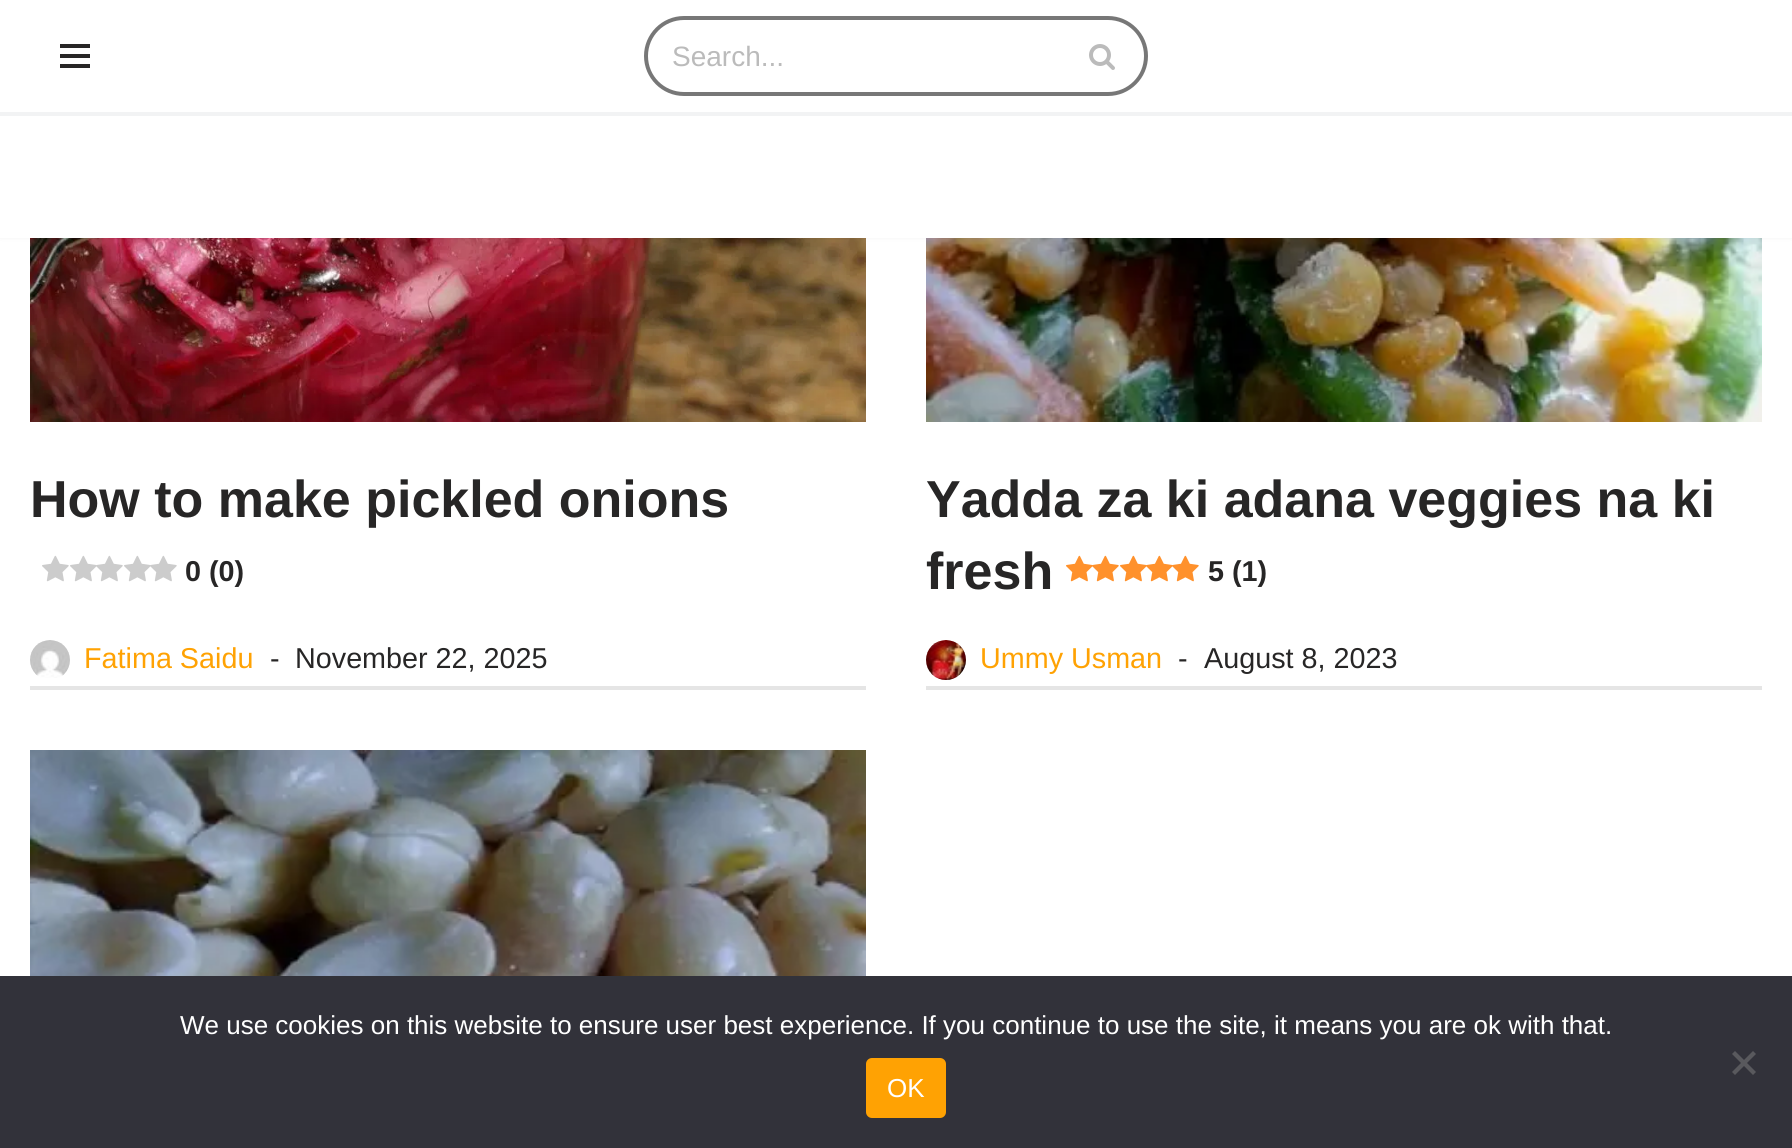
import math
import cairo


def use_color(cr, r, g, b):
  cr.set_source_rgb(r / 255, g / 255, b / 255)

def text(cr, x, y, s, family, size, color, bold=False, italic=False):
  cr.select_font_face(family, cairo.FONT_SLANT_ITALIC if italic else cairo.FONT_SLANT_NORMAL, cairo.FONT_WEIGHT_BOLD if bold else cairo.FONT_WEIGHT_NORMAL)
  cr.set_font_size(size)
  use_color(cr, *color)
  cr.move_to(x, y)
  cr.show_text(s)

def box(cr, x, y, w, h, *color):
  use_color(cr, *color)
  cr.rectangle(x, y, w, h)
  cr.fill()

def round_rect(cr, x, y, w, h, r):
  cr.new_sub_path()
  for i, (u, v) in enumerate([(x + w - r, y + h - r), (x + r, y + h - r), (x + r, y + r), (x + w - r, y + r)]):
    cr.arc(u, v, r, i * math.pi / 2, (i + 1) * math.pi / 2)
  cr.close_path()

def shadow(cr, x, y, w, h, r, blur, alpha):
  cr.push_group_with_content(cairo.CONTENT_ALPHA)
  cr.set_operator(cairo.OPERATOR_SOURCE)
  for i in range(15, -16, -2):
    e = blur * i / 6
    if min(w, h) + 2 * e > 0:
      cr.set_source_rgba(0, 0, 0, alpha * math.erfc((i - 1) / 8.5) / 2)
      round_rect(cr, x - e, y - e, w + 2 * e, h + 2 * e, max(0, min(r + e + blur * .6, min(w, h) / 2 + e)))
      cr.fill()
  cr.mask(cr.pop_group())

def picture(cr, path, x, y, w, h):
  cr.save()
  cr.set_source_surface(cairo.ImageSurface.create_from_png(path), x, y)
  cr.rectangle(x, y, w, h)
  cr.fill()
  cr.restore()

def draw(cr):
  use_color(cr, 255, 255, 255)
  cr.paint()
  picture(cr, "img_02.png", 30, 238, 836, 184)
  picture(cr, "img_06.png", 926, 238, 836, 184)
  use_color(cr, 0, 0, 0)
  shadow(cr, 0, -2, 1792, 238, 0, 3, 0.1)
  box(cr, 0, 0, 1792, 112, 255, 255, 255)
  box(cr, 0, 112, 1792, 4, 242, 243, 244)
  box(cr, 60, 44, 30, 4, 39, 38, 38)
  box(cr, 60, 54, 30, 4, 39, 38, 38)
  box(cr, 60, 64, 30, 4, 39, 38, 38)
  use_color(cr, 119, 119, 119)
  cr.set_fill_rule(cairo.FILL_RULE_EVEN_ODD)
  cr.new_path()
  cr.move_to(684, 16)
  cr.line_to(1058, 16)
  cr.line_to(1058, 96)
  cr.line_to(684, 96)
  cr.curve_to(662, 96, 644, 78, 644, 56)
  cr.curve_to(644, 34, 662, 16, 684, 16)
  cr.close_path()
  cr.move_to(684, 20)
  cr.line_to(1058, 20)
  cr.line_to(1058, 92)
  cr.line_to(684, 92)
  cr.curve_to(664, 92, 648, 76, 648, 56)
  cr.curve_to(648, 36, 664, 20, 684, 20)
  cr.close_path()
  cr.fill()
  cr.new_path()
  cr.move_to(1058, 16)
  cr.line_to(1108, 16)
  cr.curve_to(1130, 16, 1148, 34, 1148, 56)
  cr.curve_to(1148, 78, 1130, 96, 1108, 96)
  cr.line_to(1058, 96)
  cr.close_path()
  cr.move_to(1058, 20)
  cr.line_to(1108, 20)
  cr.curve_to(1128, 20, 1144, 36, 1144, 56)
  cr.curve_to(1144, 76, 1128, 92, 1108, 92)
  cr.line_to(1058, 92)
  cr.close_path()
  cr.fill()
  picture(cr, "img_01.png", 1089, 44, 26, 26)
  box(cr, 0, 116, 1792, 122, 255, 255, 255)
  box(cr, 30, 686, 836, 4, 229, 229, 229)
  picture(cr, "img_03.png", 42, 555, 27, 27)
  picture(cr, "img_03.png", 70, 555, 27, 27)
  picture(cr, "img_04.png", 96, 555, 27, 27)
  picture(cr, "img_03.png", 124, 555, 27, 27)
  picture(cr, "img_04.png", 150, 555, 27, 27)
  picture(cr, "img_05.png", 30, 640, 40, 38)
  box(cr, 926, 686, 836, 4, 229, 229, 229)
  picture(cr, "img_07.png", 1066, 555, 27, 27)
  picture(cr, "img_08.png", 1092, 555, 27, 27)
  picture(cr, "img_07.png", 1120, 555, 27, 27)
  picture(cr, "img_08.png", 1146, 555, 27, 27)
  picture(cr, "img_08.png", 1172, 555, 27, 27)
  picture(cr, "img_09.png", 926, 640, 40, 40)
  picture(cr, "img_10.png", 30, 750, 836, 226)
  box(cr, 0, 976, 1792, 172, 50, 50, 58)
  use_color(cr, 89, 89, 93)
  cr.set_fill_rule(cairo.FILL_RULE_WINDING)
  cr.new_path()
  cr.move_to(1753, 1051)
  cr.line_to(1756, 1054)
  cr.line_to(1735, 1075)
  cr.line_to(1732, 1072)
  cr.close_path()
  cr.fill()
  cr.new_path()
  cr.move_to(1732, 1054)
  cr.line_to(1735, 1051)
  cr.line_to(1756, 1072)
  cr.line_to(1753, 1075)
  cr.close_path()
  cr.fill()
  use_color(cr, 255, 162, 3)
  round_rect(cr, 866, 1058, 80, 60, 6)
  cr.fill()
  text(cr, 672, 66, "Search...", "Liberation Sans", 28, (187, 187, 187))
  text(cr, 30, 517, "How to make pickled onions", "Liberation Sans", 52, (39, 38, 38), bold=True)
  text(cr, 185, 581, "0 (0)", "Liberation Sans", 28.75, (39, 38, 38), bold=True)
  text(cr, 84, 668, "Fatima Saidu", "Liberation Sans", 28.75, (255, 162, 3))
  text(cr, 270, 668, "-", "Liberation Sans", 28.75, (39, 38, 38))
  text(cr, 295, 668, "November 22, 2025", "Liberation Sans", 28.75, (39, 38, 38))
  text(cr, 926, 517, "Yadda za ki adana veggies na ki", "Liberation Sans", 52, (39, 38, 38), bold=True)
  text(cr, 926, 589, "fresh", "Liberation Sans", 52, (39, 38, 38), bold=True)
  text(cr, 1208, 581, "5 (1)", "Liberation Sans", 28.75, (39, 38, 38), bold=True)
  text(cr, 980, 668, "Ummy Usman", "Liberation Sans", 28.75, (255, 162, 3))
  text(cr, 1178, 668, "-", "Liberation Sans", 28.75, (39, 38, 38))
  text(cr, 1204, 668, "August 8, 2023", "Liberation Sans", 28.75, (39, 38, 38))
  text(cr, 180, 1034, "We use cookies on this website to ensure user best experience. If you continue to use the site, it means you are ok with that.", "Liberation Sans", 26, (255, 255, 255))
  text(cr, 887, 1097, "OK", "Liberation Sans", 26, (255, 255, 255))


surface = cairo.ImageSurface(cairo.FORMAT_RGB24, 1792, 1148)
cr = cairo.Context(surface)
options = cairo.FontOptions()
options.set_hint_metrics(cairo.HINT_METRICS_OFF)
options.set_hint_style(cairo.HINT_STYLE_NONE)
cr.set_font_options(options)
cr.set_miter_limit(4)
draw(cr)
surface.write_to_png("out.png")
